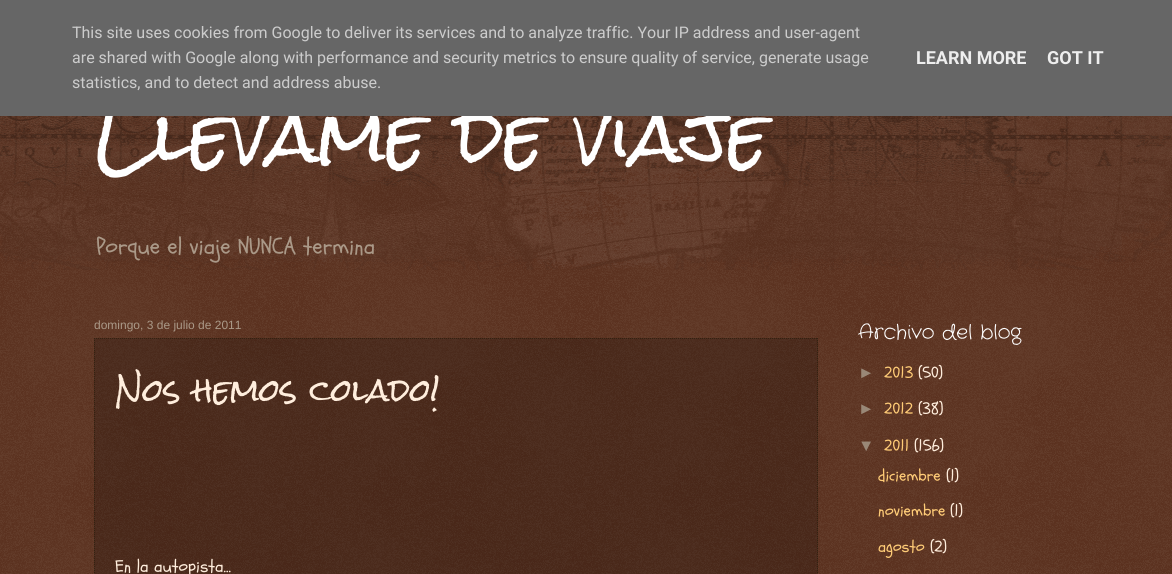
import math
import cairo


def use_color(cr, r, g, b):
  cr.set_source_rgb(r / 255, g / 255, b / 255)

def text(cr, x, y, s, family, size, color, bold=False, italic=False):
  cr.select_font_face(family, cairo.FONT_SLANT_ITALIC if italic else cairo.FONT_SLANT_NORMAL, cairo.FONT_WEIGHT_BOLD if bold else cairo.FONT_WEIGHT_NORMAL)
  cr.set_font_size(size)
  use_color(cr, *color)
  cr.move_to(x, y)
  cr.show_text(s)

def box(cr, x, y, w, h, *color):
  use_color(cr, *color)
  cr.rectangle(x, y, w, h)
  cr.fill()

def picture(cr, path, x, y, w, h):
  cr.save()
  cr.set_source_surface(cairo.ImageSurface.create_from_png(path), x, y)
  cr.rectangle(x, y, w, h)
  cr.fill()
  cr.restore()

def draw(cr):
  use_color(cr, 68, 21, 0)
  cr.paint()
  picture(cr, "img_01.png", 0, 116, 1172, 458)
  cr.set_source_rgba(0, 0, 0, 0.2)
  cr.rectangle(94, 338, 724, 236)
  cr.fill()
  cr.new_path()
  cr.move_to(94, 338.5)
  cr.line_to(818, 338.5)
  use_color(cr, 51, 34, 17)
  cr.set_line_width(1)
  cr.set_dash([1, 1])
  cr.stroke()
  cr.new_path()
  cr.move_to(817.5, 338)
  cr.line_to(817.5, 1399)
  cr.stroke()
  cr.new_path()
  cr.move_to(94.5, 338)
  cr.line_to(94.5, 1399)
  cr.stroke()
  picture(cr, "img_02.png", 0, 116, 1172, 154)
  text(cr, 94, 164, "Llévame de viaje", "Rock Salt", 70, (255, 255, 255))
  box(cr, 0, 0, 1172, 116, 102, 102, 102)
  text(cr, 1047, 64, "GOT IT", "Roboto", 18, (238, 238, 238), bold=True)
  text(cr, 916, 64, "LEARN MORE", "Roboto", 18, (238, 238, 238), bold=True)
  text(cr, 72, 88, "statistics, and to detect and address abuse.", "Roboto", 16, (204, 204, 204))
  text(cr, 72, 63, "are shared with Google along with performance and security metrics to ensure quality of service, generate usage", "Roboto", 16, (204, 204, 204))
  text(cr, 72, 38, "This site uses cookies from Google to deliver its services and to analyze traffic. Your IP address and user-agent", "Roboto", 16, (204, 204, 204))
  text(cr, 96, 254, "Porque el viaje NUNCA termina", "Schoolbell", 23.25, (170, 153, 136))
  text(cr, 94, 329, "domingo, 3 de julio de 2011", "Liberation Sans", 12, (170, 153, 136))
  text(cr, 115, 402, "Nos hemos colado!", "Rock Salt", 30, (255, 238, 221))
  text(cr, 115, 572, "En la autopista...", "Schoolbell", 17.5, (255, 238, 221))
  text(cr, 858, 338, "Archivo del blog", "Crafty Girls", 20, (255, 255, 255))
  text(cr, 858, 378, "►", "Liberation Sans", 16.5, (153, 136, 119))
  text(cr, 884, 378, "2013", "Schoolbell", 16.5, (255, 204, 119))
  text(cr, 918, 378, "(50)", "Schoolbell", 16.5, (255, 238, 221))
  text(cr, 858, 414, "►", "Liberation Sans", 16.5, (153, 136, 119))
  text(cr, 884, 414, "2012", "Schoolbell", 16.5, (255, 204, 119))
  text(cr, 918, 414, "(38)", "Schoolbell", 16.5, (255, 238, 221))
  text(cr, 858, 451, "▼", "Liberation Sans", 16.5, (153, 136, 119))
  text(cr, 884, 451, "2011", "Schoolbell", 16.5, (255, 204, 119))
  text(cr, 914, 451, "(156)", "Schoolbell", 16.5, (255, 238, 221))
  text(cr, 878, 481, "diciembre", "Schoolbell", 16.5, (255, 204, 119))
  text(cr, 946, 481, "(1)", "Schoolbell", 16.5, (255, 238, 221))
  text(cr, 878, 516, "noviembre", "Schoolbell", 16.5, (255, 204, 119))
  text(cr, 950, 516, "(1)", "Schoolbell", 16.5, (255, 238, 221))
  text(cr, 878, 552, "agosto", "Schoolbell", 16.5, (255, 204, 119))
  text(cr, 930, 552, "(2)", "Schoolbell", 16.5, (255, 238, 221))


surface = cairo.ImageSurface(cairo.FORMAT_RGB24, 1172, 574)
cr = cairo.Context(surface)
options = cairo.FontOptions()
options.set_hint_metrics(cairo.HINT_METRICS_OFF)
options.set_hint_style(cairo.HINT_STYLE_NONE)
cr.set_font_options(options)
cr.set_miter_limit(4)
draw(cr)
surface.write_to_png("out.png")
